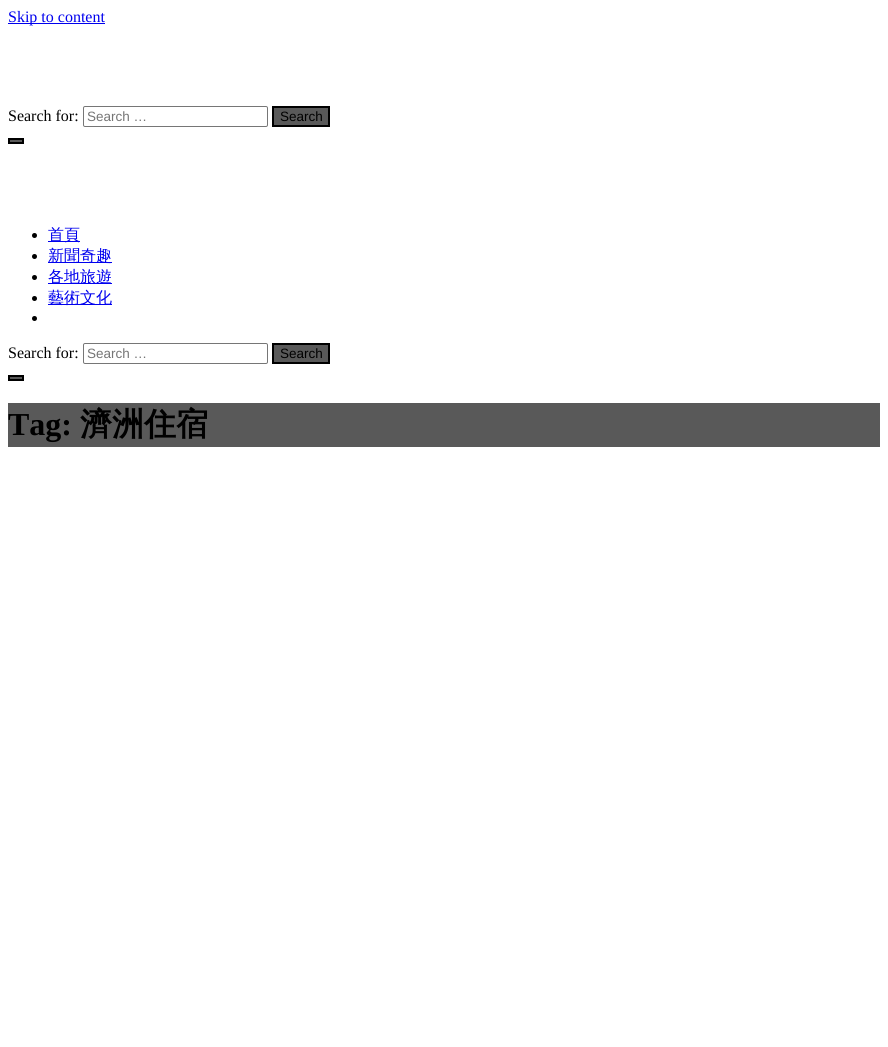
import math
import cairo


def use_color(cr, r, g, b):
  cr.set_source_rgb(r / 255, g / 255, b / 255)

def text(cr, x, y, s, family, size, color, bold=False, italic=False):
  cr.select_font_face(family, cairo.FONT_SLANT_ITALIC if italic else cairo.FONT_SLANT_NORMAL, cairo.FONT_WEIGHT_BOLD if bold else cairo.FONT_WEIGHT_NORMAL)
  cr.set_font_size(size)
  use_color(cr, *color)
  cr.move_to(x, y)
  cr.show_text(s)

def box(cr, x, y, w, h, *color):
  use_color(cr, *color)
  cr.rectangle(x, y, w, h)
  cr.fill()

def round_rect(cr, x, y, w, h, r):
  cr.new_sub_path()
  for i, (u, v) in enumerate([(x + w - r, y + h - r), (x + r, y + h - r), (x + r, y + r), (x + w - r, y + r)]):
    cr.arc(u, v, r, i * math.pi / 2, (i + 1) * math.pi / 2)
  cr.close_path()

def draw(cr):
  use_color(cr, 255, 255, 255)
  cr.paint()
  box(cr, 8, 23, 97, 1, 0, 0, 238)
  round_rect(cr, 83.5, 106.5, 184, 20, 1.5)
  use_color(cr, 118, 118, 118)
  cr.set_line_width(1)
  cr.stroke()
  use_color(cr, 89, 89, 89)
  cr.rectangle(273, 107, 56, 19)
  cr.fill_preserve()
  use_color(cr, 0, 0, 0)
  cr.set_line_width(2)
  cr.stroke()
  use_color(cr, 89, 89, 89)
  cr.rectangle(9, 139, 14, 4)
  cr.fill_preserve()
  use_color(cr, 0, 0, 0)
  cr.stroke()
  cr.arc(34.5, 235.5, 2.5, 0, 2 * math.pi)
  cr.fill()
  box(cr, 48, 241, 32, 1, 0, 0, 238)
  use_color(cr, 0, 0, 0)
  cr.arc(34.5, 256.5, 2.5, 0, 2 * math.pi)
  cr.fill()
  box(cr, 48, 262, 64, 1, 0, 0, 238)
  use_color(cr, 0, 0, 0)
  cr.arc(34.5, 277.5, 2.5, 0, 2 * math.pi)
  cr.fill()
  box(cr, 48, 283, 64, 1, 0, 0, 238)
  use_color(cr, 0, 0, 0)
  cr.arc(34.5, 298.5, 2.5, 0, 2 * math.pi)
  cr.fill()
  box(cr, 48, 304, 64, 1, 0, 0, 238)
  use_color(cr, 0, 0, 0)
  cr.arc(34.5, 318.5, 2.5, 0, 2 * math.pi)
  cr.fill()
  round_rect(cr, 83.5, 343.5, 184, 20, 1.5)
  use_color(cr, 118, 118, 118)
  cr.set_line_width(1)
  cr.stroke()
  use_color(cr, 89, 89, 89)
  cr.rectangle(273, 344, 56, 19)
  cr.fill_preserve()
  use_color(cr, 0, 0, 0)
  cr.set_line_width(2)
  cr.stroke()
  use_color(cr, 89, 89, 89)
  cr.rectangle(9, 376, 14, 4)
  cr.fill_preserve()
  use_color(cr, 0, 0, 0)
  cr.stroke()
  box(cr, 8, 403, 872, 44, 89, 89, 89)
  text(cr, 8, 22, "Skip to content", "Liberation Serif", 16, (0, 0, 238))
  text(cr, 8, 121, "Search for:", "Liberation Serif", 16, (0, 0, 0))
  text(cr, 87, 121, "Search …", "Liberation Sans", 13.5, (117, 117, 117))
  text(cr, 280, 121, "Search", "Liberation Sans", 13.5, (0, 0, 0))
  text(cr, 48, 240, "首頁", "WenQuanYi Zen Hei Medium", 16, (0, 0, 238))
  text(cr, 48, 261, "新聞奇趣", "WenQuanYi Zen Hei Medium", 16, (0, 0, 238))
  text(cr, 48, 282, "各地旅遊", "WenQuanYi Zen Hei Medium", 16, (0, 0, 238))
  text(cr, 48, 303, "藝術文化", "WenQuanYi Zen Hei Medium", 16, (0, 0, 238))
  text(cr, 8, 358, "Search for:", "Liberation Serif", 16, (0, 0, 0))
  text(cr, 87, 358, "Search …", "Liberation Sans", 13.5, (117, 117, 117))
  text(cr, 280, 358, "Search", "Liberation Sans", 13.5, (0, 0, 0))
  text(cr, 8, 435, "Tag:", "Liberation Serif", 32, (0, 0, 0), bold=True)
  text(cr, 80, 435, "濟洲住宿", "WenQuanYi Zen Hei", 32, (0, 0, 0), bold=True)


surface = cairo.ImageSurface(cairo.FORMAT_RGB24, 888, 1047)
cr = cairo.Context(surface)
options = cairo.FontOptions()
options.set_hint_metrics(cairo.HINT_METRICS_OFF)
options.set_hint_style(cairo.HINT_STYLE_NONE)
cr.set_font_options(options)
cr.set_miter_limit(4)
draw(cr)
surface.write_to_png("out.png")
